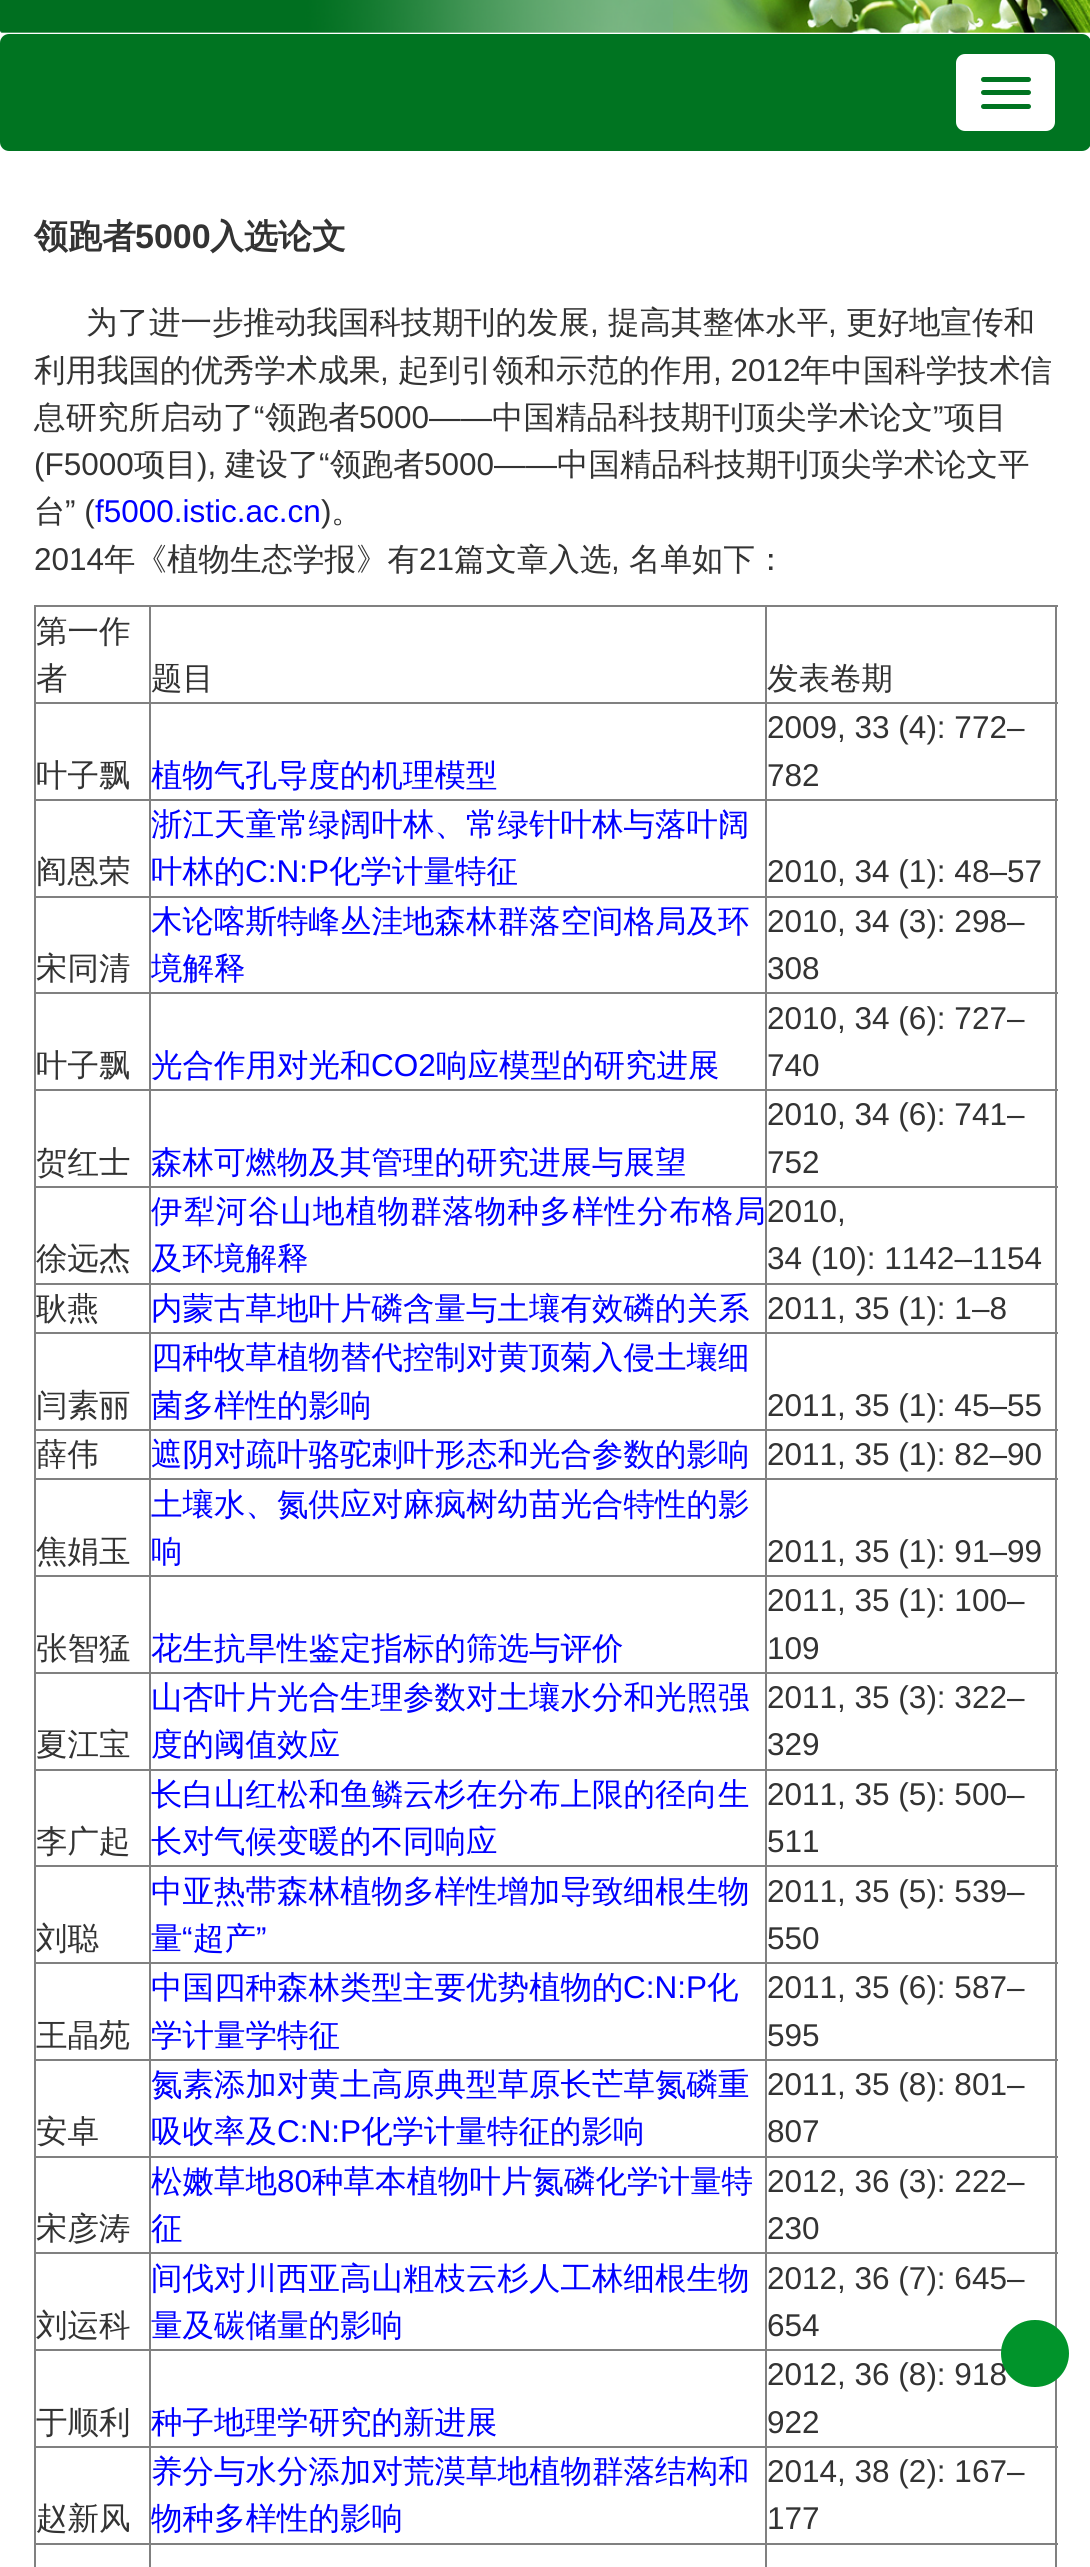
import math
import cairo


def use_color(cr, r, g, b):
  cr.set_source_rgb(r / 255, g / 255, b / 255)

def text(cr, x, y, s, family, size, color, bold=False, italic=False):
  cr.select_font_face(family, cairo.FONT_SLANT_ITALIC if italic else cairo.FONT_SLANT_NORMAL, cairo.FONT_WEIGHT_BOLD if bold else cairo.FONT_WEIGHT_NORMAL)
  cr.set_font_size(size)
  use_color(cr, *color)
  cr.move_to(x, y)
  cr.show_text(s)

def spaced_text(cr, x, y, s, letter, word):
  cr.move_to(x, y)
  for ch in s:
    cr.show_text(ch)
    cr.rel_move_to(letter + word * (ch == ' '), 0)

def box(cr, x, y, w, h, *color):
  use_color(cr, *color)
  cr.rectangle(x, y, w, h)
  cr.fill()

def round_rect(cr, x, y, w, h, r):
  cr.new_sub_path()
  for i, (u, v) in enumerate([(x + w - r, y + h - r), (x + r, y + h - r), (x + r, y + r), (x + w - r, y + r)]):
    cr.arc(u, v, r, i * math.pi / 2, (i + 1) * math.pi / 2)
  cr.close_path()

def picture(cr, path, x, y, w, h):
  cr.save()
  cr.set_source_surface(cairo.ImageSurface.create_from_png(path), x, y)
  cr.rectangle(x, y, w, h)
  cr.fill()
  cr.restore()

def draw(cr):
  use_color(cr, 255, 255, 255)
  cr.paint()
  picture(cr, "img_01.png", 0, 0, 1090, 33)
  use_color(cr, 0, 116, 33)
  round_rect(cr, 0, 34, 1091, 117, 9)
  cr.fill()
  use_color(cr, 255, 255, 255)
  round_rect(cr, 956, 54, 99, 77, 9)
  cr.fill()
  use_color(cr, 0, 116, 33)
  round_rect(cr, 981, 77, 50, 5, 2.5)
  cr.fill()
  round_rect(cr, 981, 90, 50, 5, 2.5)
  cr.fill()
  round_rect(cr, 981, 104, 50, 5, 2.5)
  cr.fill()
  box(cr, 34, 605, 1024, 2, 128, 128, 128)
  box(cr, 1055, 605, 2, 1962, 128, 128, 128)
  box(cr, 34, 605, 2, 1962, 128, 128, 128)
  box(cr, 765, 702, 293, 2, 128, 128, 128)
  box(cr, 765, 799, 293, 2, 128, 128, 128)
  box(cr, 765, 896, 293, 2, 128, 128, 128)
  box(cr, 765, 992, 293, 2, 128, 128, 128)
  box(cr, 765, 1089, 293, 2, 128, 128, 128)
  box(cr, 765, 1186, 293, 2, 128, 128, 128)
  box(cr, 765, 1283, 293, 2, 128, 128, 128)
  box(cr, 765, 1332, 293, 2, 128, 128, 128)
  box(cr, 765, 1429, 293, 2, 128, 128, 128)
  box(cr, 765, 1478, 293, 2, 128, 128, 128)
  box(cr, 765, 1575, 293, 2, 128, 128, 128)
  box(cr, 765, 1672, 293, 2, 128, 128, 128)
  box(cr, 765, 1769, 293, 2, 128, 128, 128)
  box(cr, 765, 1865, 293, 2, 128, 128, 128)
  box(cr, 765, 1962, 293, 2, 128, 128, 128)
  box(cr, 765, 2059, 293, 2, 128, 128, 128)
  box(cr, 765, 2156, 293, 2, 128, 128, 128)
  box(cr, 765, 2252, 293, 2, 128, 128, 128)
  box(cr, 765, 2349, 237, 2, 128, 128, 128)
  box(cr, 765, 2446, 293, 2, 128, 128, 128)
  box(cr, 765, 2543, 293, 2, 128, 128, 128)
  box(cr, 765, 2543, 2, 24, 128, 128, 128)
  box(cr, 149, 2543, 618, 2, 128, 128, 128)
  box(cr, 765, 2446, 2, 99, 128, 128, 128)
  box(cr, 149, 2446, 618, 2, 128, 128, 128)
  box(cr, 765, 2349, 2, 99, 128, 128, 128)
  box(cr, 149, 2349, 618, 2, 128, 128, 128)
  box(cr, 765, 2252, 2, 99, 128, 128, 128)
  box(cr, 149, 2252, 618, 2, 128, 128, 128)
  box(cr, 765, 2156, 2, 99, 128, 128, 128)
  box(cr, 149, 2156, 618, 2, 128, 128, 128)
  box(cr, 765, 2059, 2, 99, 128, 128, 128)
  box(cr, 149, 2059, 618, 2, 128, 128, 128)
  box(cr, 765, 1962, 2, 99, 128, 128, 128)
  box(cr, 149, 1962, 618, 2, 128, 128, 128)
  box(cr, 765, 1865, 2, 99, 128, 128, 128)
  box(cr, 149, 1865, 618, 2, 128, 128, 128)
  box(cr, 765, 1769, 2, 99, 128, 128, 128)
  box(cr, 149, 1769, 618, 2, 128, 128, 128)
  box(cr, 765, 1672, 2, 99, 128, 128, 128)
  box(cr, 149, 1672, 618, 2, 128, 128, 128)
  box(cr, 765, 1575, 2, 99, 128, 128, 128)
  box(cr, 149, 1575, 618, 2, 128, 128, 128)
  box(cr, 765, 1478, 2, 99, 128, 128, 128)
  box(cr, 149, 1478, 618, 2, 128, 128, 128)
  box(cr, 765, 1429, 2, 52, 128, 128, 128)
  box(cr, 149, 1429, 618, 2, 128, 128, 128)
  box(cr, 765, 1332, 2, 99, 128, 128, 128)
  box(cr, 149, 1332, 618, 2, 128, 128, 128)
  box(cr, 765, 1283, 2, 51, 128, 128, 128)
  box(cr, 149, 1283, 618, 2, 128, 128, 128)
  box(cr, 765, 1186, 2, 99, 128, 128, 128)
  box(cr, 149, 1186, 618, 2, 128, 128, 128)
  box(cr, 765, 1089, 2, 99, 128, 128, 128)
  box(cr, 149, 1089, 618, 2, 128, 128, 128)
  box(cr, 765, 992, 2, 99, 128, 128, 128)
  box(cr, 149, 992, 618, 2, 128, 128, 128)
  box(cr, 765, 896, 2, 99, 128, 128, 128)
  box(cr, 149, 896, 618, 2, 128, 128, 128)
  box(cr, 765, 799, 2, 99, 128, 128, 128)
  box(cr, 149, 799, 618, 2, 128, 128, 128)
  box(cr, 765, 702, 2, 99, 128, 128, 128)
  box(cr, 149, 702, 618, 2, 128, 128, 128)
  box(cr, 149, 2543, 2, 24, 128, 128, 128)
  box(cr, 34, 2543, 117, 2, 128, 128, 128)
  box(cr, 149, 2446, 2, 99, 128, 128, 128)
  box(cr, 34, 2446, 117, 2, 128, 128, 128)
  box(cr, 149, 2349, 2, 99, 128, 128, 128)
  box(cr, 34, 2349, 117, 2, 128, 128, 128)
  box(cr, 149, 2252, 2, 99, 128, 128, 128)
  box(cr, 34, 2252, 117, 2, 128, 128, 128)
  box(cr, 149, 2156, 2, 99, 128, 128, 128)
  box(cr, 34, 2156, 117, 2, 128, 128, 128)
  box(cr, 149, 2059, 2, 99, 128, 128, 128)
  box(cr, 34, 2059, 117, 2, 128, 128, 128)
  box(cr, 149, 1962, 2, 99, 128, 128, 128)
  box(cr, 34, 1962, 117, 2, 128, 128, 128)
  box(cr, 149, 1865, 2, 99, 128, 128, 128)
  box(cr, 34, 1865, 117, 2, 128, 128, 128)
  box(cr, 149, 1769, 2, 99, 128, 128, 128)
  box(cr, 34, 1769, 117, 2, 128, 128, 128)
  box(cr, 149, 1672, 2, 99, 128, 128, 128)
  box(cr, 34, 1672, 117, 2, 128, 128, 128)
  box(cr, 149, 1575, 2, 99, 128, 128, 128)
  box(cr, 34, 1575, 117, 2, 128, 128, 128)
  box(cr, 149, 1478, 2, 99, 128, 128, 128)
  box(cr, 34, 1478, 117, 2, 128, 128, 128)
  box(cr, 149, 1429, 2, 52, 128, 128, 128)
  box(cr, 34, 1429, 117, 2, 128, 128, 128)
  box(cr, 149, 1332, 2, 99, 128, 128, 128)
  box(cr, 34, 1332, 117, 2, 128, 128, 128)
  box(cr, 149, 1283, 2, 51, 128, 128, 128)
  box(cr, 34, 1283, 117, 2, 128, 128, 128)
  box(cr, 149, 1186, 2, 99, 128, 128, 128)
  box(cr, 34, 1186, 117, 2, 128, 128, 128)
  box(cr, 149, 1089, 2, 99, 128, 128, 128)
  box(cr, 34, 1089, 117, 2, 128, 128, 128)
  box(cr, 149, 992, 2, 99, 128, 128, 128)
  box(cr, 34, 992, 117, 2, 128, 128, 128)
  box(cr, 149, 896, 2, 99, 128, 128, 128)
  box(cr, 34, 896, 117, 2, 128, 128, 128)
  box(cr, 149, 799, 2, 99, 128, 128, 128)
  box(cr, 34, 799, 117, 2, 128, 128, 128)
  box(cr, 149, 702, 2, 99, 128, 128, 128)
  box(cr, 34, 702, 117, 2, 128, 128, 128)
  box(cr, 149, 605, 2, 99, 128, 128, 128)
  box(cr, 765, 605, 2, 99, 128, 128, 128)
  text(cr, 34, 248, "领跑者", "WenQuanYi Zen Hei", 34, (51, 51, 51), bold=True)
  text(cr, 135, 248, "5000", "Liberation Sans", 34, (51, 51, 51), bold=True)
  text(cr, 210, 248, "入选论文", "WenQuanYi Zen Hei", 34, (51, 51, 51), bold=True)
  text(cr, 86, 333, "为了进一步推动我国科技期刊的发展", "WenQuanYi Zen Hei Medium", 31.5, (51, 51, 51))
  text(cr, 590, 333, ",", "Liberation Sans", 31.5, (51, 51, 51))
  text(cr, 608, 333, "提高其整体水平", "WenQuanYi Zen Hei Medium", 31.5, (51, 51, 51))
  text(cr, 828, 333, ",", "Liberation Sans", 31.5, (51, 51, 51))
  text(cr, 846, 333, "更好地宣传和", "WenQuanYi Zen Hei Medium", 31.5, (51, 51, 51))
  text(cr, 34, 381, "利用我国的优秀学术成果", "WenQuanYi Zen Hei Medium", 31.5, (51, 51, 51))
  text(cr, 380, 381, ",", "Liberation Sans", 31.5, (51, 51, 51))
  text(cr, 398, 381, "起到引领和示范的作用", "WenQuanYi Zen Hei Medium", 31.5, (51, 51, 51))
  text(cr, 713, 381, ", 2012", "Liberation Sans", 31.5, (51, 51, 51))
  text(cr, 800, 381, "年中国科学技术信", "WenQuanYi Zen Hei Medium", 31.5, (51, 51, 51))
  text(cr, 34, 428, "息研究所启动了", "WenQuanYi Zen Hei Medium", 31.5, (51, 51, 51))
  text(cr, 254, 428, "“", "Liberation Sans", 31.5, (51, 51, 51))
  text(cr, 265, 428, "领跑者", "WenQuanYi Zen Hei Medium", 31.5, (51, 51, 51))
  text(cr, 359, 428, "5000——", "Liberation Sans", 31.5, (51, 51, 51))
  text(cr, 492, 428, "中国精品科技期刊顶尖学术论文", "WenQuanYi Zen Hei Medium", 31.5, (51, 51, 51))
  text(cr, 933, 428, "”", "Liberation Sans", 31.5, (51, 51, 51))
  text(cr, 944, 428, "项目", "WenQuanYi Zen Hei Medium", 31.5, (51, 51, 51))
  text(cr, 34, 475, "(F5000", "Liberation Sans", 31.5, (51, 51, 51))
  text(cr, 134, 475, "项目", "WenQuanYi Zen Hei Medium", 31.5, (51, 51, 51))
  text(cr, 197, 475, "),", "Liberation Sans", 31.5, (51, 51, 51))
  text(cr, 225, 475, "建设了", "WenQuanYi Zen Hei Medium", 31.5, (51, 51, 51))
  text(cr, 319, 475, "“", "Liberation Sans", 31.5, (51, 51, 51))
  text(cr, 330, 475, "领跑者", "WenQuanYi Zen Hei Medium", 31.5, (51, 51, 51))
  text(cr, 424, 475, "5000——", "Liberation Sans", 31.5, (51, 51, 51))
  text(cr, 557, 475, "中国精品科技期刊顶尖学术论文平", "WenQuanYi Zen Hei Medium", 31.5, (51, 51, 51))
  text(cr, 34, 522, "台", "WenQuanYi Zen Hei Medium", 31.5, (51, 51, 51))
  text(cr, 65, 522, "” (", "Liberation Sans", 31.5, (51, 51, 51))
  text(cr, 95, 522, "f5000.istic.ac.cn", "Liberation Sans", 31.5, (0, 0, 255))
  text(cr, 321, 522, ")", "Liberation Sans", 31.5, (51, 51, 51))
  text(cr, 331, 522, "。", "WenQuanYi Zen Hei Medium", 31.5, (51, 51, 51))
  text(cr, 34, 570, "2014", "Liberation Sans", 31.5, (51, 51, 51))
  text(cr, 104, 570, "年《植物生态学报》有", "WenQuanYi Zen Hei Medium", 31.5, (51, 51, 51))
  text(cr, 419, 570, "21", "Liberation Sans", 31.5, (51, 51, 51))
  text(cr, 454, 570, "篇文章入选", "WenQuanYi Zen Hei Medium", 31.5, (51, 51, 51))
  text(cr, 611, 570, ",", "Liberation Sans", 31.5, (51, 51, 51))
  text(cr, 629, 570, "名单如下：", "WenQuanYi Zen Hei Medium", 31.5, (51, 51, 51))
  text(cr, 36, 642, "第一作", "WenQuanYi Zen Hei Medium", 31.5, (51, 51, 51))
  text(cr, 36, 689, "者", "WenQuanYi Zen Hei Medium", 31.5, (51, 51, 51))
  text(cr, 151, 689, "题目", "WenQuanYi Zen Hei Medium", 31.5, (51, 51, 51))
  text(cr, 767, 689, "发表卷期", "WenQuanYi Zen Hei Medium", 31.5, (51, 51, 51))
  text(cr, 36, 786, "叶子飘", "WenQuanYi Zen Hei Medium", 31.5, (51, 51, 51))
  text(cr, 151, 786, "植物气孔导度的机理模型", "WenQuanYi Zen Hei Medium", 31.5, (0, 0, 255))
  text(cr, 767, 738, "2009, 33 (4): 772–", "Liberation Sans", 31.5, (51, 51, 51))
  text(cr, 767, 786, "782", "Liberation Sans", 31.5, (51, 51, 51))
  text(cr, 36, 882, "阎恩荣", "WenQuanYi Zen Hei Medium", 31.5, (51, 51, 51))
  text(cr, 151, 835, "浙江天童常绿阔叶林、常绿针叶林与落叶阔", "WenQuanYi Zen Hei Medium", 31.5, (0, 0, 255))
  text(cr, 151, 882, "叶林的", "WenQuanYi Zen Hei Medium", 31.5, (0, 0, 255))
  text(cr, 245, 882, "C:N:P", "Liberation Sans", 31.5, (0, 0, 255))
  text(cr, 329, 882, "化学计量特征", "WenQuanYi Zen Hei Medium", 31.5, (0, 0, 255))
  text(cr, 767, 882, "2010, 34 (1): 48–57", "Liberation Sans", 31.5, (51, 51, 51))
  text(cr, 36, 979, "宋同清", "WenQuanYi Zen Hei Medium", 31.5, (51, 51, 51))
  text(cr, 151, 932, "木论喀斯特峰丛洼地森林群落空间格局及环", "WenQuanYi Zen Hei Medium", 31.5, (0, 0, 255))
  text(cr, 151, 979, "境解释", "WenQuanYi Zen Hei Medium", 31.5, (0, 0, 255))
  text(cr, 767, 932, "2010, 34 (3): 298–", "Liberation Sans", 31.5, (51, 51, 51))
  text(cr, 767, 979, "308", "Liberation Sans", 31.5, (51, 51, 51))
  text(cr, 36, 1076, "叶子飘", "WenQuanYi Zen Hei Medium", 31.5, (51, 51, 51))
  text(cr, 151, 1076, "光合作用对光和", "WenQuanYi Zen Hei Medium", 31.5, (0, 0, 255))
  text(cr, 371, 1076, "CO2", "Liberation Sans", 31.5, (0, 0, 255))
  text(cr, 436, 1076, "响应模型的研究进展", "WenQuanYi Zen Hei Medium", 31.5, (0, 0, 255))
  text(cr, 767, 1029, "2010, 34 (6): 727–", "Liberation Sans", 31.5, (51, 51, 51))
  text(cr, 767, 1076, "740", "Liberation Sans", 31.5, (51, 51, 51))
  text(cr, 36, 1173, "贺红士", "WenQuanYi Zen Hei Medium", 31.5, (51, 51, 51))
  text(cr, 151, 1173, "森林可燃物及其管理的研究进展与展望", "WenQuanYi Zen Hei Medium", 31.5, (0, 0, 255))
  text(cr, 767, 1125, "2010, 34 (6): 741–", "Liberation Sans", 31.5, (51, 51, 51))
  text(cr, 767, 1173, "752", "Liberation Sans", 31.5, (51, 51, 51))
  text(cr, 36, 1269, "徐远杰", "WenQuanYi Zen Hei Medium", 31.5, (51, 51, 51))
  use_color(cr, 0, 0, 255)
  spaced_text(cr, 151, 1222, "伊犁河谷山地植物群落物种多样性分布格局", 0.9, 0)
  text(cr, 151, 1269, "及环境解释", "WenQuanYi Zen Hei Medium", 31.5, (0, 0, 255))
  text(cr, 767, 1222, "2010,", "Liberation Sans", 31.5, (51, 51, 51))
  text(cr, 767, 1269, "34 (10): 1142–1154", "Liberation Sans", 31.5, (51, 51, 51))
  text(cr, 36, 1319, "耿燕", "WenQuanYi Zen Hei Medium", 31.5, (51, 51, 51))
  text(cr, 151, 1319, "内蒙古草地叶片磷含量与土壤有效磷的关系", "WenQuanYi Zen Hei Medium", 31.5, (0, 0, 255))
  text(cr, 767, 1319, "2011, 35 (1): 1–8", "Liberation Sans", 31.5, (51, 51, 51))
  text(cr, 36, 1416, "闫素丽", "WenQuanYi Zen Hei Medium", 31.5, (51, 51, 51))
  text(cr, 151, 1368, "四种牧草植物替代控制对黄顶菊入侵土壤细", "WenQuanYi Zen Hei Medium", 31.5, (0, 0, 255))
  text(cr, 151, 1416, "菌多样性的影响", "WenQuanYi Zen Hei Medium", 31.5, (0, 0, 255))
  text(cr, 767, 1416, "2011, 35 (1): 45–55", "Liberation Sans", 31.5, (51, 51, 51))
  text(cr, 36, 1465, "薛伟", "WenQuanYi Zen Hei Medium", 31.5, (51, 51, 51))
  text(cr, 151, 1465, "遮阴对疏叶骆驼刺叶形态和光合参数的影响", "WenQuanYi Zen Hei Medium", 31.5, (0, 0, 255))
  text(cr, 767, 1465, "2011, 35 (1): 82–90", "Liberation Sans", 31.5, (51, 51, 51))
  text(cr, 36, 1562, "焦娟玉", "WenQuanYi Zen Hei Medium", 31.5, (51, 51, 51))
  text(cr, 151, 1515, "土壤水、氮供应对麻疯树幼苗光合特性的影", "WenQuanYi Zen Hei Medium", 31.5, (0, 0, 255))
  text(cr, 151, 1562, "响", "WenQuanYi Zen Hei Medium", 31.5, (0, 0, 255))
  text(cr, 767, 1562, "2011, 35 (1): 91–99", "Liberation Sans", 31.5, (51, 51, 51))
  text(cr, 36, 1659, "张智猛", "WenQuanYi Zen Hei Medium", 31.5, (51, 51, 51))
  text(cr, 151, 1659, "花生抗旱性鉴定指标的筛选与评价", "WenQuanYi Zen Hei Medium", 31.5, (0, 0, 255))
  text(cr, 767, 1611, "2011, 35 (1): 100–", "Liberation Sans", 31.5, (51, 51, 51))
  text(cr, 767, 1659, "109", "Liberation Sans", 31.5, (51, 51, 51))
  text(cr, 36, 1755, "夏江宝", "WenQuanYi Zen Hei Medium", 31.5, (51, 51, 51))
  text(cr, 151, 1708, "山杏叶片光合生理参数对土壤水分和光照强", "WenQuanYi Zen Hei Medium", 31.5, (0, 0, 255))
  text(cr, 151, 1755, "度的阈值效应", "WenQuanYi Zen Hei Medium", 31.5, (0, 0, 255))
  text(cr, 767, 1708, "2011, 35 (3): 322–", "Liberation Sans", 31.5, (51, 51, 51))
  text(cr, 767, 1755, "329", "Liberation Sans", 31.5, (51, 51, 51))
  text(cr, 36, 1852, "李广起", "WenQuanYi Zen Hei Medium", 31.5, (51, 51, 51))
  text(cr, 151, 1805, "长白山红松和鱼鳞云杉在分布上限的径向生", "WenQuanYi Zen Hei Medium", 31.5, (0, 0, 255))
  text(cr, 151, 1852, "长对气候变暖的不同响应", "WenQuanYi Zen Hei Medium", 31.5, (0, 0, 255))
  text(cr, 767, 1805, "2011, 35 (5): 500–", "Liberation Sans", 31.5, (51, 51, 51))
  text(cr, 767, 1852, "511", "Liberation Sans", 31.5, (51, 51, 51))
  text(cr, 36, 1949, "刘聪", "WenQuanYi Zen Hei Medium", 31.5, (51, 51, 51))
  text(cr, 151, 1902, "中亚热带森林植物多样性增加导致细根生物", "WenQuanYi Zen Hei Medium", 31.5, (0, 0, 255))
  text(cr, 151, 1949, "量", "WenQuanYi Zen Hei Medium", 31.5, (0, 0, 255))
  text(cr, 182, 1949, "“", "Liberation Sans", 31.5, (0, 0, 255))
  text(cr, 193, 1949, "超产", "WenQuanYi Zen Hei Medium", 31.5, (0, 0, 255))
  text(cr, 256, 1949, "”", "Liberation Sans", 31.5, (0, 0, 255))
  text(cr, 767, 1902, "2011, 35 (5): 539–", "Liberation Sans", 31.5, (51, 51, 51))
  text(cr, 767, 1949, "550", "Liberation Sans", 31.5, (51, 51, 51))
  text(cr, 36, 2046, "王晶苑", "WenQuanYi Zen Hei Medium", 31.5, (51, 51, 51))
  text(cr, 151, 1998, "中国四种森林类型主要优势植物的", "WenQuanYi Zen Hei Medium", 31.5, (0, 0, 255))
  text(cr, 623, 1998, "C:N:P", "Liberation Sans", 31.5, (0, 0, 255))
  text(cr, 707, 1998, "化", "WenQuanYi Zen Hei Medium", 31.5, (0, 0, 255))
  text(cr, 151, 2046, "学计量学特征", "WenQuanYi Zen Hei Medium", 31.5, (0, 0, 255))
  text(cr, 767, 1998, "2011, 35 (6): 587–", "Liberation Sans", 31.5, (51, 51, 51))
  text(cr, 767, 2046, "595", "Liberation Sans", 31.5, (51, 51, 51))
  text(cr, 36, 2142, "安卓", "WenQuanYi Zen Hei Medium", 31.5, (51, 51, 51))
  text(cr, 151, 2095, "氮素添加对黄土高原典型草原长芒草氮磷重", "WenQuanYi Zen Hei Medium", 31.5, (0, 0, 255))
  text(cr, 151, 2142, "吸收率及", "WenQuanYi Zen Hei Medium", 31.5, (0, 0, 255))
  text(cr, 277, 2142, "C:N:P", "Liberation Sans", 31.5, (0, 0, 255))
  text(cr, 361, 2142, "化学计量特征的影响", "WenQuanYi Zen Hei Medium", 31.5, (0, 0, 255))
  text(cr, 767, 2095, "2011, 35 (8): 801–", "Liberation Sans", 31.5, (51, 51, 51))
  text(cr, 767, 2142, "807", "Liberation Sans", 31.5, (51, 51, 51))
  text(cr, 36, 2239, "宋彦涛", "WenQuanYi Zen Hei Medium", 31.5, (51, 51, 51))
  text(cr, 151, 2192, "松嫩草地", "WenQuanYi Zen Hei Medium", 31.5, (0, 0, 255))
  text(cr, 277, 2192, "80", "Liberation Sans", 31.5, (0, 0, 255))
  text(cr, 312, 2192, "种草本植物叶片氮磷化学计量特", "WenQuanYi Zen Hei Medium", 31.5, (0, 0, 255))
  text(cr, 151, 2239, "征", "WenQuanYi Zen Hei Medium", 31.5, (0, 0, 255))
  text(cr, 767, 2192, "2012, 36 (3): 222–", "Liberation Sans", 31.5, (51, 51, 51))
  text(cr, 767, 2239, "230", "Liberation Sans", 31.5, (51, 51, 51))
  text(cr, 36, 2336, "刘运科", "WenQuanYi Zen Hei Medium", 31.5, (51, 51, 51))
  text(cr, 151, 2289, "间伐对川西亚高山粗枝云杉人工林细根生物", "WenQuanYi Zen Hei Medium", 31.5, (0, 0, 255))
  text(cr, 151, 2336, "量及碳储量的影响", "WenQuanYi Zen Hei Medium", 31.5, (0, 0, 255))
  text(cr, 767, 2289, "2012, 36 (7): 645–", "Liberation Sans", 31.5, (51, 51, 51))
  text(cr, 767, 2336, "654", "Liberation Sans", 31.5, (51, 51, 51))
  text(cr, 36, 2433, "于顺利", "WenQuanYi Zen Hei Medium", 31.5, (51, 51, 51))
  text(cr, 151, 2433, "种子地理学研究的新进展", "WenQuanYi Zen Hei Medium", 31.5, (0, 0, 255))
  text(cr, 767, 2385, "2012, 36 (8): 918", "Liberation Sans", 31.5, (51, 51, 51))
  text(cr, 767, 2433, "922", "Liberation Sans", 31.5, (51, 51, 51))
  text(cr, 36, 2529, "赵新风", "WenQuanYi Zen Hei Medium", 31.5, (51, 51, 51))
  text(cr, 151, 2482, "养分与水分添加对荒漠草地植物群落结构和", "WenQuanYi Zen Hei Medium", 31.5, (0, 0, 255))
  text(cr, 151, 2529, "物种多样性的影响", "WenQuanYi Zen Hei Medium", 31.5, (0, 0, 255))
  text(cr, 767, 2482, "2014, 38 (2): 167–", "Liberation Sans", 31.5, (51, 51, 51))
  text(cr, 767, 2529, "177", "Liberation Sans", 31.5, (51, 51, 51))
  use_color(cr, 1, 148, 43)
  round_rect(cr, 1001, 2320, 68, 67, 33.5)
  cr.fill()


surface = cairo.ImageSurface(cairo.FORMAT_RGB24, 1090, 2567)
cr = cairo.Context(surface)
options = cairo.FontOptions()
options.set_hint_metrics(cairo.HINT_METRICS_OFF)
options.set_hint_style(cairo.HINT_STYLE_NONE)
cr.set_font_options(options)
cr.set_miter_limit(4)
draw(cr)
surface.write_to_png("out.png")
